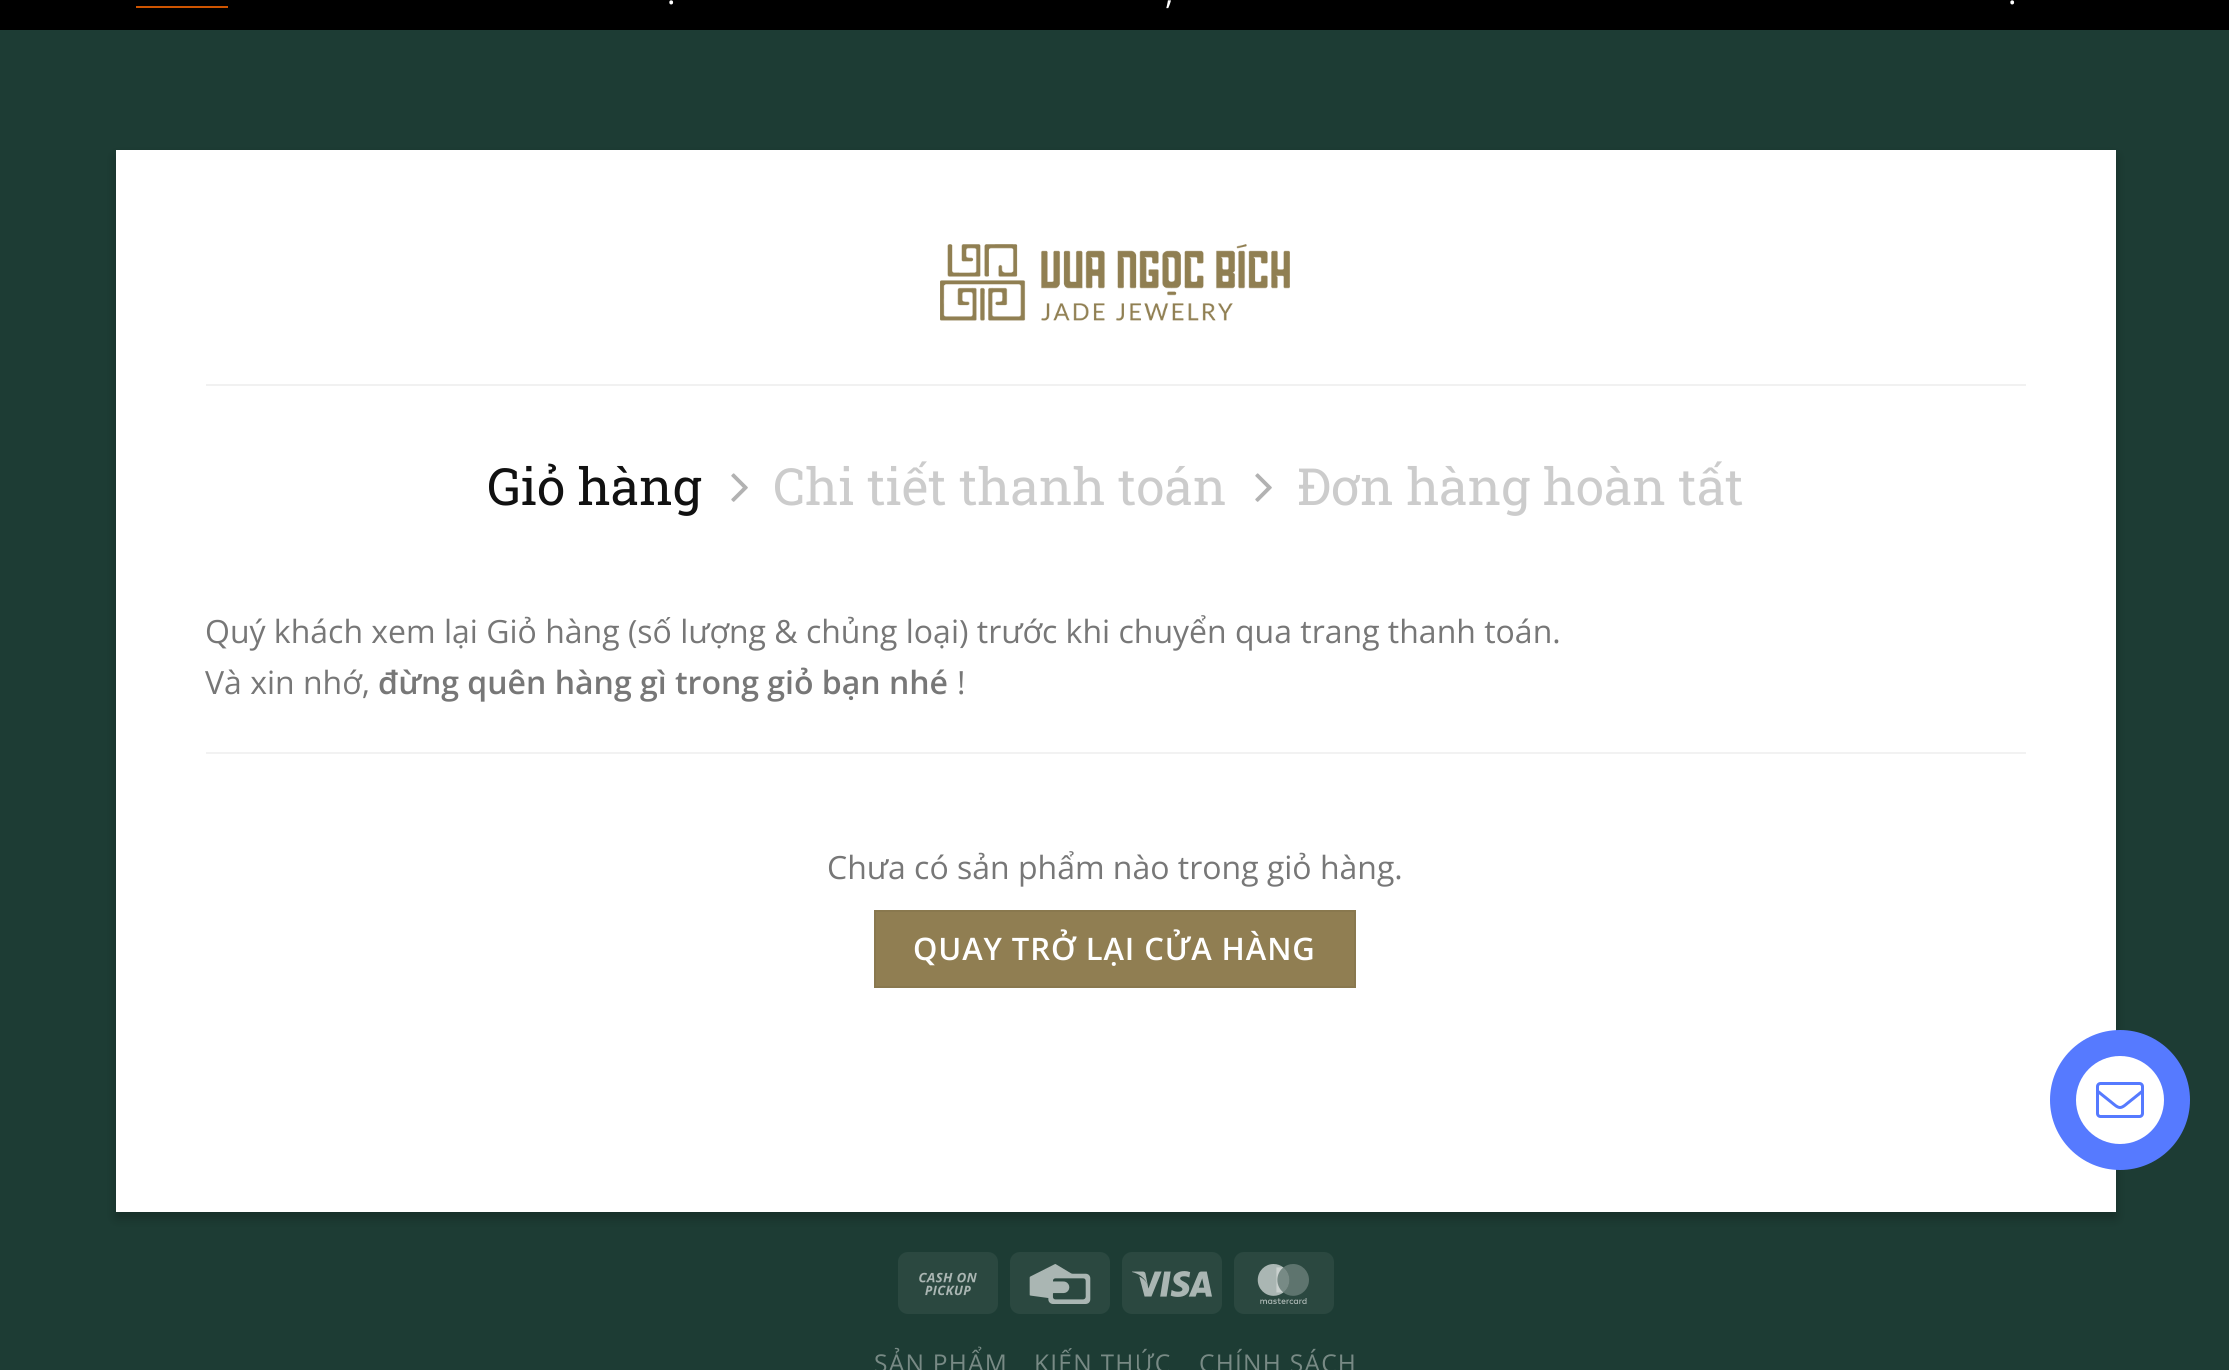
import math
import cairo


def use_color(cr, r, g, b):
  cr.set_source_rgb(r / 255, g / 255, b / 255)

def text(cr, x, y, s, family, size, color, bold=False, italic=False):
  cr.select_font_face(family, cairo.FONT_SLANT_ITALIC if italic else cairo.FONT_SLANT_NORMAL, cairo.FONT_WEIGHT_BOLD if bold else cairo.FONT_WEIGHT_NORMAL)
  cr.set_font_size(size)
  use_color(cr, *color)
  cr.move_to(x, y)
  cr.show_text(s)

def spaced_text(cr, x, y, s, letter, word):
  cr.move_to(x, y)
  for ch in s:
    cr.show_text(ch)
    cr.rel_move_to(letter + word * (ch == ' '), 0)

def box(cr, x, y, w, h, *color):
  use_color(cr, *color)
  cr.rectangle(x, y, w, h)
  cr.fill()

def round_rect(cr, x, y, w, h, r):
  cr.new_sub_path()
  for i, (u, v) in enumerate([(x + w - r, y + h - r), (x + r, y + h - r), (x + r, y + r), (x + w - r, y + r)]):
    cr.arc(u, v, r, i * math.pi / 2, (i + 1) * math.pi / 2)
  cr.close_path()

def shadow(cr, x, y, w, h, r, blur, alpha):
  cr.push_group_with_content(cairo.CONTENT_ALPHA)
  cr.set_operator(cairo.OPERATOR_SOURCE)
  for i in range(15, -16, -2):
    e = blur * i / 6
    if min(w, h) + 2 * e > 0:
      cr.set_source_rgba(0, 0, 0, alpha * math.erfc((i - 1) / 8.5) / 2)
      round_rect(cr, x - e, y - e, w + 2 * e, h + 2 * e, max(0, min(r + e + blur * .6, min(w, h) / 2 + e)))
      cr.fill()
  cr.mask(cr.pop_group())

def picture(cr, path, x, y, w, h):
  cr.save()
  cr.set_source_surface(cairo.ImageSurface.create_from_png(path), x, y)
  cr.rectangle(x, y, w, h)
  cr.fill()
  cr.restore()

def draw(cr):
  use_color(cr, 29, 60, 52)
  cr.paint()
  box(cr, 0, 0, 2229, 30, 0, 0, 0)
  box(cr, 136, 6, 92, 2, 206, 84, 0)
  use_color(cr, 0, 0, 0)
  shadow(cr, 116, 156, 2000, 1062, 0, 6, 0.23)
  box(cr, 116, 150, 2000, 1062, 255, 255, 255)
  picture(cr, "img_01.png", 940, 244, 350, 77)
  box(cr, 206, 384, 1820, 2, 241, 241, 241)
  picture(cr, "img_02.png", 731, 473, 17, 29)
  picture(cr, "img_02.png", 1255, 473, 17, 29)
  box(cr, 206, 752, 1820, 2, 242, 242, 242)
  use_color(cr, 144, 126, 82)
  cr.rectangle(875, 911, 480, 76)
  cr.fill_preserve()
  use_color(cr, 137, 120, 78)
  cr.stroke()
  use_color(cr, 43, 72, 64)
  round_rect(cr, 898, 1252, 100, 62, 10)
  cr.fill()
  picture(cr, "img_03.png", 919, 1272, 58, 24)
  round_rect(cr, 1010, 1252, 100, 62, 10)
  cr.fill()
  picture(cr, "img_04.png", 1029, 1264, 62, 40)
  round_rect(cr, 1122, 1252, 100, 62, 10)
  cr.fill()
  picture(cr, "img_05.png", 1132, 1271, 80, 26)
  round_rect(cr, 1234, 1252, 100, 62, 10)
  cr.fill()
  picture(cr, "img_06.png", 1257, 1264, 52, 40)
  use_color(cr, 86, 122, 255)
  cr.arc(2120, 1100, 70, 0, 2 * math.pi)
  cr.fill()
  use_color(cr, 255, 255, 255)
  cr.arc(2120, 1100, 44, 0, 2 * math.pi)
  cr.fill()
  picture(cr, "img_07.png", 2096, 1082, 48, 36)
  text(cr, 667, 4, ".", "Open Sans", 32, (255, 255, 255))
  text(cr, 1165, 4, ",", "Open Sans", 32, (255, 255, 255))
  text(cr, 2008, 4, ".", "Open Sans", 32, (255, 255, 255))
  text(cr, 487, 505, "Giỏ hàng", "Roboto Slab", 51.25, (17, 17, 17))
  text(cr, 773, 505, "Chi tiết thanh toán", "Roboto Slab", 51.25, (204, 204, 204))
  text(cr, 1297, 505, "Đơn hàng hoàn tất", "Roboto Slab", 51.25, (204, 204, 204))
  text(cr, 205, 643, "Quý khách xem lại Giỏ hàng (số lượng & chủng loại) trước khi chuyển qua trang thanh toán.", "Open Sans", 32, (119, 119, 119))
  text(cr, 205, 694, "Và xin nhớ,", "Open Sans", 32, (119, 119, 119))
  text(cr, 378, 694, "đừng quên hàng gì trong giỏ bạn nhé", "Open Sans SemiBold", 32, (119, 119, 119))
  text(cr, 957, 694, "!", "Open Sans", 32, (119, 119, 119))
  text(cr, 827, 879, "Chưa có sản phẩm nào trong giỏ hàng.", "Open Sans", 32, (119, 119, 119))
  cr.select_font_face("Open Sans SemiBold")
  cr.set_font_size(31)
  use_color(cr, 255, 255, 255)
  spaced_text(cr, 913, 960, "QUAY TRỞ LẠI CỬA HÀNG", 0.9, 0)
  cr.select_font_face("Open Sans")
  cr.set_font_size(24.5)
  use_color(cr, 120, 138, 133)
  spaced_text(cr, 874, 1372, "SẢN PHẨM", 1.25, 0)
  spaced_text(cr, 1034, 1372, "KIẾN THỨC", 1.25, 0)
  spaced_text(cr, 1199, 1372, "CHÍNH SÁCH", 1.25, 0)


surface = cairo.ImageSurface(cairo.FORMAT_RGB24, 2229, 1370)
cr = cairo.Context(surface)
options = cairo.FontOptions()
options.set_hint_metrics(cairo.HINT_METRICS_OFF)
options.set_hint_style(cairo.HINT_STYLE_NONE)
cr.set_font_options(options)
cr.set_miter_limit(4)
draw(cr)
surface.write_to_png("out.png")
